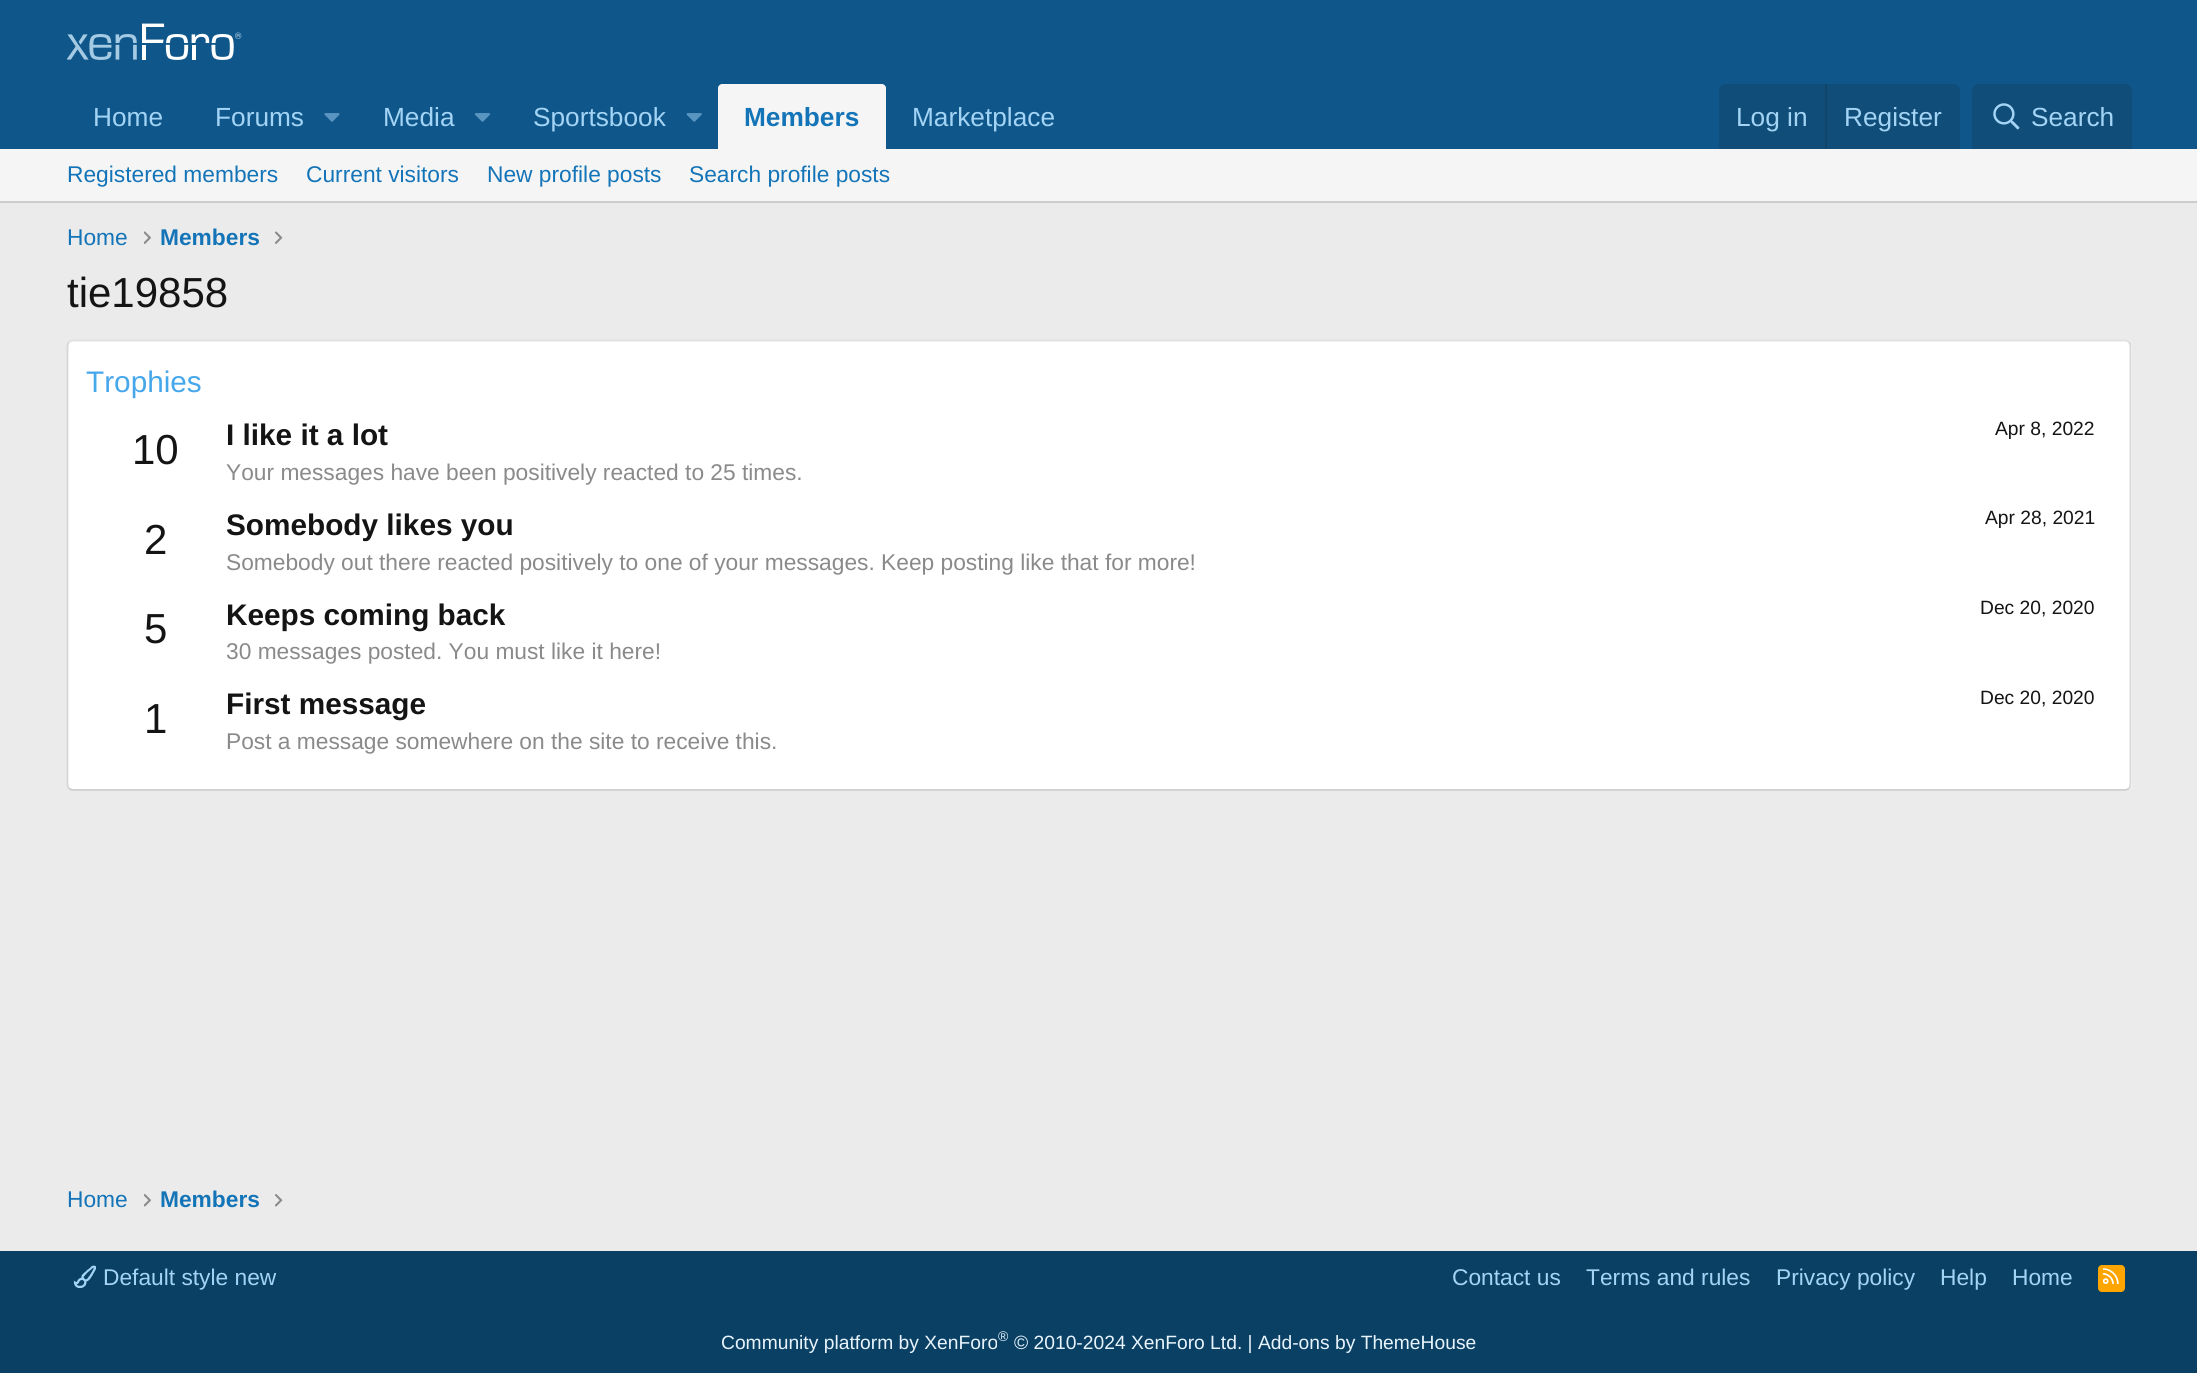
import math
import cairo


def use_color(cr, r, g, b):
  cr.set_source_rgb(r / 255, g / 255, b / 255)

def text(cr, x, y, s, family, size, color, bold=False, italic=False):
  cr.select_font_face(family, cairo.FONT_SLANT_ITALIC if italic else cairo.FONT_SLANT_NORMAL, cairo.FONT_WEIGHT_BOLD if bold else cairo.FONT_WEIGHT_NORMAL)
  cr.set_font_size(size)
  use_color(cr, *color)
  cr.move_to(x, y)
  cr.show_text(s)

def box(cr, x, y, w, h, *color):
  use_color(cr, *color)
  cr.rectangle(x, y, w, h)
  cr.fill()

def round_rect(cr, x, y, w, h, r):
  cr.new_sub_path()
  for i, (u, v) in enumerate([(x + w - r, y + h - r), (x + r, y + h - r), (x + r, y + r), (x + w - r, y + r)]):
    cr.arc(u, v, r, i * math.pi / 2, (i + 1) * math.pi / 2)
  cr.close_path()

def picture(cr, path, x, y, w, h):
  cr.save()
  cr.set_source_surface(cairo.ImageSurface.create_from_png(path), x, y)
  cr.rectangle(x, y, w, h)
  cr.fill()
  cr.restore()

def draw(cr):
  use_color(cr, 235, 235, 235)
  cr.paint()
  box(cr, 0, 0, 2197, 149, 15, 87, 138)
  picture(cr, "img_01.png", 67, 23, 175, 37)
  picture(cr, "img_02.png", 324, 113, 16, 9)
  picture(cr, "img_03.png", 474, 113, 16, 9)
  picture(cr, "img_04.png", 686, 113, 16, 9)
  use_color(cr, 245, 245, 245)
  cr.new_path()
  cr.move_to(722, 84)
  cr.line_to(882, 84)
  cr.curve_to(884, 84, 886, 86, 886, 88)
  cr.line_to(886, 149)
  cr.line_to(718, 149)
  cr.line_to(718, 88)
  cr.curve_to(718, 86, 720, 84, 722, 84)
  cr.close_path()
  cr.fill()
  use_color(cr, 16, 77, 120)
  cr.new_path()
  cr.move_to(1726, 84)
  cr.line_to(1953, 84)
  cr.curve_to(1957, 84, 1960, 87, 1960, 91)
  cr.line_to(1960, 149)
  cr.line_to(1719, 149)
  cr.line_to(1719, 91)
  cr.curve_to(1719, 87, 1722, 84, 1726, 84)
  cr.close_path()
  cr.fill()
  box(cr, 1825, 84, 2, 65, 17, 68, 105)
  use_color(cr, 16, 77, 120)
  cr.new_path()
  cr.move_to(1979, 84)
  cr.line_to(2125, 84)
  cr.curve_to(2129, 84, 2132, 87, 2132, 91)
  cr.line_to(2132, 149)
  cr.line_to(1972, 149)
  cr.line_to(1972, 91)
  cr.curve_to(1972, 87, 1975, 84, 1979, 84)
  cr.close_path()
  cr.fill()
  picture(cr, "img_05.png", 1993, 103, 27, 27)
  box(cr, 0, 149, 2197, 52, 245, 245, 245)
  box(cr, 0, 201, 2197, 2, 204, 204, 204)
  picture(cr, "img_06.png", 144, 231, 7, 13)
  picture(cr, "img_07.png", 275, 231, 8, 13)
  use_color(cr, 255, 255, 255)
  round_rect(cr, 67, 340, 2065, 451, 7)
  cr.fill()
  cr.new_path()
  cr.move_to(69, 342)
  cr.curve_to(70.5, 341, 72, 340.5, 73.5, 340.5)
  cr.line_to(2124.5, 340.5)
  cr.curve_to(2126, 340.5, 2127.5, 341, 2129, 342)
  use_color(cr, 224, 224, 224)
  cr.set_line_width(1.8)
  cr.stroke()
  cr.new_path()
  cr.move_to(2129, 342)
  cr.curve_to(2130, 343.5, 2130.5, 345, 2130.5, 346.5)
  cr.line_to(2130.5, 784)
  cr.curve_to(2130.5, 785.5, 2130, 787, 2129, 788.5)
  use_color(cr, 214, 214, 214)
  cr.stroke()
  cr.new_path()
  cr.move_to(2129, 788.5)
  cr.curve_to(2127.5, 789.5, 2126, 790, 2124.5, 790)
  cr.line_to(73.5, 790)
  cr.curve_to(72, 790, 70.5, 789.5, 69, 788.5)
  use_color(cr, 204, 204, 204)
  cr.stroke()
  cr.new_path()
  cr.move_to(69, 788.5)
  cr.curve_to(68, 787, 67.5, 785.5, 67.5, 784)
  cr.line_to(67.5, 346.5)
  cr.curve_to(67.5, 345, 68, 343.5, 69, 342)
  use_color(cr, 214, 214, 214)
  cr.stroke()
  picture(cr, "img_08.png", 144, 1194, 7, 13)
  picture(cr, "img_09.png", 275, 1194, 8, 13)
  box(cr, 0, 1251, 2197, 122, 11, 64, 101)
  picture(cr, "img_10.png", 73, 1265, 23, 23)
  use_color(cr, 255, 165, 0)
  round_rect(cr, 2098, 1265, 27, 27, 4)
  cr.fill()
  picture(cr, "img_11.png", 2102, 1268, 17, 16)
  text(cr, 93, 126, "Home", "Liberation Sans", 26.25, (163, 212, 245))
  text(cr, 215, 126, "Forums", "Liberation Sans", 26.25, (163, 212, 245))
  text(cr, 383, 126, "Media", "Liberation Sans", 26.25, (163, 212, 245))
  text(cr, 533, 126, "Sportsbook", "Liberation Sans", 26.25, (163, 212, 245))
  text(cr, 744, 126, "Members", "Liberation Sans", 26.25, (20, 116, 184), bold=True)
  text(cr, 912, 126, "Marketplace", "Liberation Sans", 26.25, (163, 212, 245))
  text(cr, 1736, 126, "Log in", "Liberation Sans", 26.25, (163, 212, 245))
  text(cr, 1844, 126, "Register", "Liberation Sans", 26.25, (163, 212, 245))
  text(cr, 2031, 126, "Search", "Liberation Sans", 26.25, (163, 212, 245))
  text(cr, 67, 182, "Registered members", "Liberation Sans", 22.75, (20, 116, 184))
  text(cr, 306, 182, "Current visitors", "Liberation Sans", 22.75, (20, 116, 184))
  text(cr, 487, 182, "New profile posts", "Liberation Sans", 22.75, (20, 116, 184))
  text(cr, 689, 182, "Search profile posts", "Liberation Sans", 22.75, (20, 116, 184))
  text(cr, 67, 245, "Home", "Liberation Sans", 22.75, (20, 116, 184))
  text(cr, 160, 245, "Members", "Liberation Sans", 22.75, (20, 116, 184), bold=True)
  text(cr, 67, 307, "tie19858", "Liberation Sans", 42, (20, 20, 20))
  text(cr, 86, 392, "Trophies", "Liberation Sans", 29.75, (71, 167, 235))
  text(cr, 132, 464, "10", "Liberation Sans", 42, (20, 20, 20))
  text(cr, 226, 445, "I like it a lot", "Liberation Sans", 29.75, (20, 20, 20), bold=True)
  text(cr, 1995, 435, "Apr 8, 2022", "Liberation Sans", 19.25, (20, 20, 20))
  text(cr, 226, 480, "Your messages have been positively reacted to 25 times.", "Liberation Sans", 22.75, (138, 138, 138))
  text(cr, 144, 554, "2", "Liberation Sans", 42, (20, 20, 20))
  text(cr, 226, 535, "Somebody likes you", "Liberation Sans", 29.75, (20, 20, 20), bold=True)
  text(cr, 1985, 524, "Apr 28, 2021", "Liberation Sans", 19.25, (20, 20, 20))
  text(cr, 226, 570, "Somebody out there reacted positively to one of your messages. Keep posting like that for more!", "Liberation Sans", 22.75, (138, 138, 138))
  text(cr, 144, 643, "5", "Liberation Sans", 42, (20, 20, 20))
  text(cr, 226, 625, "Keeps coming back", "Liberation Sans", 29.75, (20, 20, 20), bold=True)
  text(cr, 1980, 614, "Dec 20, 2020", "Liberation Sans", 19.25, (20, 20, 20))
  text(cr, 226, 659, "30 messages posted. You must like it here!", "Liberation Sans", 22.75, (138, 138, 138))
  text(cr, 144, 733, "1", "Liberation Sans", 42, (20, 20, 20))
  text(cr, 226, 714, "First message", "Liberation Sans", 29.75, (20, 20, 20), bold=True)
  text(cr, 1980, 704, "Dec 20, 2020", "Liberation Sans", 19.25, (20, 20, 20))
  text(cr, 226, 749, "Post a message somewhere on the site to receive this.", "Liberation Sans", 22.75, (138, 138, 138))
  text(cr, 67, 1207, "Home", "Liberation Sans", 22.75, (20, 116, 184))
  text(cr, 160, 1207, "Members", "Liberation Sans", 22.75, (20, 116, 184), bold=True)
  text(cr, 103, 1285, "Default style new", "Liberation Sans", 22.75, (163, 212, 245))
  text(cr, 1452, 1285, "Contact us", "Liberation Sans", 22.75, (163, 212, 245))
  text(cr, 1586, 1285, "Terms and rules", "Liberation Sans", 22.75, (163, 212, 245))
  text(cr, 1776, 1285, "Privacy policy", "Liberation Sans", 22.75, (163, 212, 245))
  text(cr, 1940, 1285, "Help", "Liberation Sans", 22.75, (163, 212, 245))
  text(cr, 2012, 1285, "Home", "Liberation Sans", 22.75, (163, 212, 245))
  text(cr, 721, 1349, "Community platform by XenForo", "Liberation Sans", 19.25, (232, 244, 252))
  text(cr, 998, 1341, "®", "Liberation Sans", 14, (232, 244, 252))
  text(cr, 1014, 1349, "© 2010-2024 XenForo Ltd. | Add-ons by ThemeHouse", "Liberation Sans", 19.25, (232, 244, 252))


surface = cairo.ImageSurface(cairo.FORMAT_RGB24, 2197, 1373)
cr = cairo.Context(surface)
options = cairo.FontOptions()
options.set_hint_metrics(cairo.HINT_METRICS_OFF)
options.set_hint_style(cairo.HINT_STYLE_NONE)
cr.set_font_options(options)
cr.set_miter_limit(4)
draw(cr)
surface.write_to_png("out.png")
